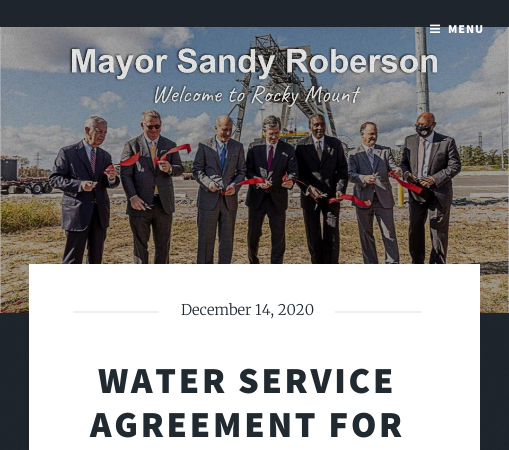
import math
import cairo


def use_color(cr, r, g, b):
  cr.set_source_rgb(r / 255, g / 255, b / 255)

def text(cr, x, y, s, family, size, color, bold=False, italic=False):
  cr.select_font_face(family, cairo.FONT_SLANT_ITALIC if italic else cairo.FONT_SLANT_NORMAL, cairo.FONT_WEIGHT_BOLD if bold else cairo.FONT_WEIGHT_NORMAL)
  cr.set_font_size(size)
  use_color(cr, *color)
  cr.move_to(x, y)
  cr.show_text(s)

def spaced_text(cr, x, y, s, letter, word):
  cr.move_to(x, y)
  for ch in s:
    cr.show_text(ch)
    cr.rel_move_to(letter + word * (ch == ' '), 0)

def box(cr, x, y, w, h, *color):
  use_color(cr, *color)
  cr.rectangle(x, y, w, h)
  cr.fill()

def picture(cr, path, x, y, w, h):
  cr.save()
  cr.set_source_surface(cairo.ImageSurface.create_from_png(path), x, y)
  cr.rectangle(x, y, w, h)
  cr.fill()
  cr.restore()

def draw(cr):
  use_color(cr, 30, 37, 45)
  cr.paint()
  box(cr, 0, 313, 509, 137, 33, 41, 49)
  picture(cr, "img_02.png", 0, 27, 509, 423)
  picture(cr, "img_01.png", 430, 24, 11, 9)
  box(cr, 29, 264, 451, 186, 255, 255, 255)
  box(cr, 73, 311, 86, 2, 238, 238, 238)
  box(cr, 335, 311, 86, 2, 238, 238, 238)
  cr.select_font_face("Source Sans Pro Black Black")
  cr.set_font_size(12)
  use_color(cr, 255, 255, 255)
  spaced_text(cr, 448, 33, "MENU", 1, 0)
  text(cr, 181, 315, "December 14, 2020", "Merriweather Light", 14.75, (33, 41, 49))
  cr.select_font_face("Source Sans Pro Black Black")
  cr.set_font_size(36.75)
  spaced_text(cr, 98, 393, "WATER SERVICE", 2.75, 0)
  spaced_text(cr, 90, 437, "AGREEMENT FOR", 2.75, 0)


surface = cairo.ImageSurface(cairo.FORMAT_RGB24, 509, 450)
cr = cairo.Context(surface)
options = cairo.FontOptions()
options.set_hint_metrics(cairo.HINT_METRICS_OFF)
options.set_hint_style(cairo.HINT_STYLE_NONE)
cr.set_font_options(options)
cr.set_miter_limit(4)
draw(cr)
surface.write_to_png("out.png")
